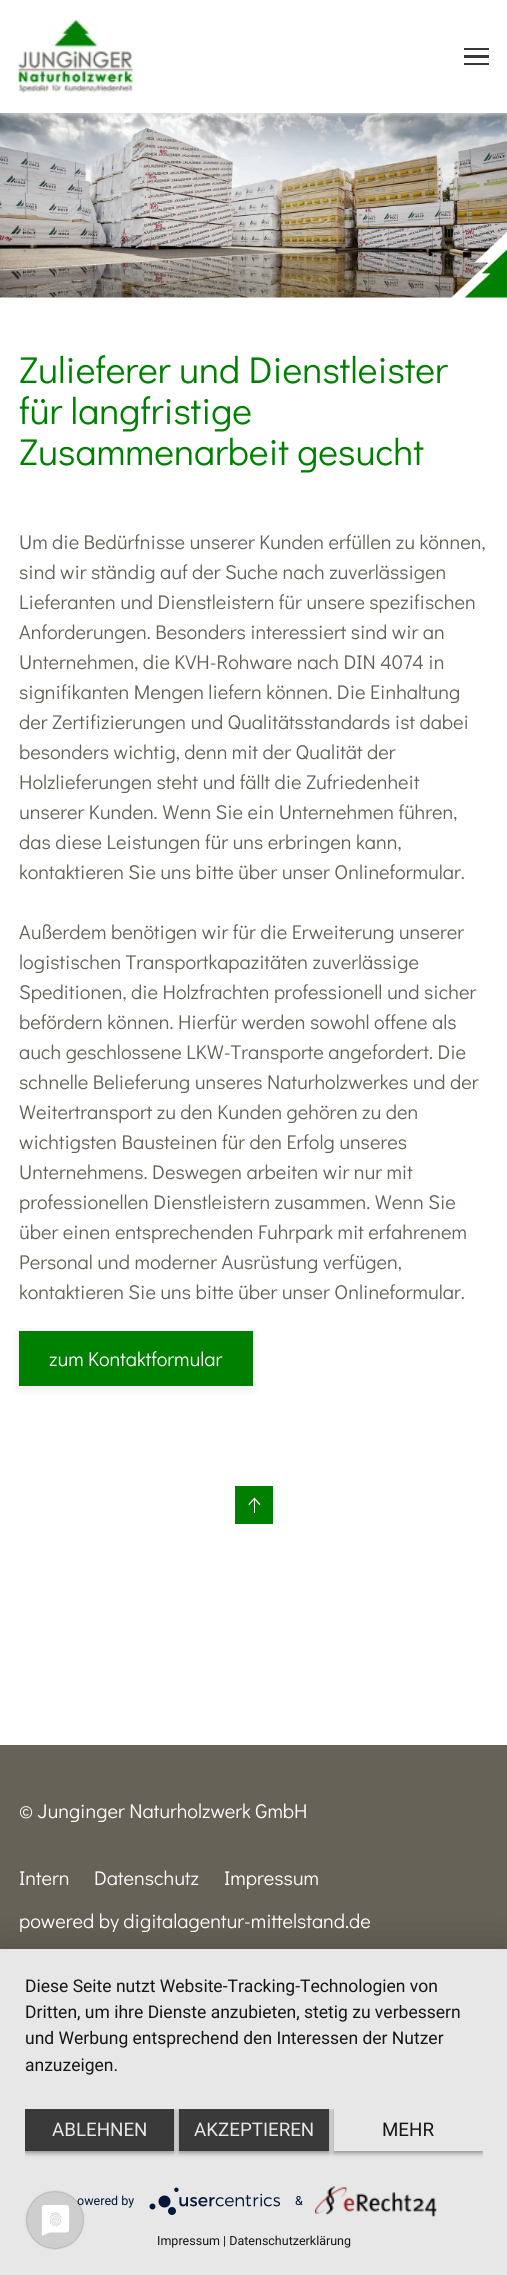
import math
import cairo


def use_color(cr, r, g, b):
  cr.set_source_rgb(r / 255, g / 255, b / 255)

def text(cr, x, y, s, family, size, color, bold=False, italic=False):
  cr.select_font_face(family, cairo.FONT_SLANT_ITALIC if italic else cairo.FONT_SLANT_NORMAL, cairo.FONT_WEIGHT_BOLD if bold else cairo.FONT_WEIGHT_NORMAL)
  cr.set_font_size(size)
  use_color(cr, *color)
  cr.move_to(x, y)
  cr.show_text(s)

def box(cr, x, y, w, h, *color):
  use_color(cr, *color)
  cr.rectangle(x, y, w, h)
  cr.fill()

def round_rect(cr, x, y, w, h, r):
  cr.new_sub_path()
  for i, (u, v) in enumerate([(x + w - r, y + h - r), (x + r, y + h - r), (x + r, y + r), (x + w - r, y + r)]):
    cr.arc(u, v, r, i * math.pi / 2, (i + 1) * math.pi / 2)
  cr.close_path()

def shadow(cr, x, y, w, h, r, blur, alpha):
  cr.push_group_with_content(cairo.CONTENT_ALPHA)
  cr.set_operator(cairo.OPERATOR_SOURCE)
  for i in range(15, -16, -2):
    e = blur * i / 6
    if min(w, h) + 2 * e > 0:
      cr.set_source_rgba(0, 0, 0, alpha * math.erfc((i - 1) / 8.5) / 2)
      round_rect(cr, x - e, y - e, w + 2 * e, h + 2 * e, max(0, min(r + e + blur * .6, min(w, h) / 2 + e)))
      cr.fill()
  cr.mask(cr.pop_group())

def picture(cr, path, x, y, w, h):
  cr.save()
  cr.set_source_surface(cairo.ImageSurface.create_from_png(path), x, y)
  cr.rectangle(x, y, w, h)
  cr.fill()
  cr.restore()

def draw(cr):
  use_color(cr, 255, 255, 255)
  cr.paint()
  picture(cr, "img_02.png", 0, 113, 507, 185)
  use_color(cr, 219, 219, 219)
  shadow(cr, 1, 1, 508, 113, 0, 3, 1)
  box(cr, 0, 0, 507, 113, 255, 255, 255)
  picture(cr, "img_01.png", 18, 18, 115, 76)
  box(cr, 464, 48, 25, 2, 55, 55, 55)
  box(cr, 464, 55, 25, 3, 55, 55, 55)
  box(cr, 464, 63, 25, 2, 55, 55, 55)
  use_color(cr, 0, 0, 0)
  shadow(cr, 19, 1334, 234, 55, 0, 5, 0.08)
  box(cr, 19, 1331, 234, 55, 0, 128, 0)
  box(cr, 235, 1486, 38, 38, 0, 128, 0)
  picture(cr, "img_03.png", 248, 1497, 13, 16)
  box(cr, 169, 1674, 1, 1, 252, 251, 252)
  box(cr, 0, 1745, 507, 204, 102, 98, 87)
  use_color(cr, 0, 0, 0)
  shadow(cr, 0, 1956, 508, 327, 0, 22.5, 0.3)
  box(cr, 0, 1949, 507, 326, 231, 231, 231)
  cr.save()
  cr.rectangle(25, 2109, 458, 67)
  cr.clip()
  use_color(cr, 0, 0, 0)
  shadow(cr, 25, 2110, 149, 43, 0, 2.5, 0.4)
  cr.restore()
  box(cr, 25, 2109, 149, 42, 58, 58, 58)
  cr.save()
  cr.rectangle(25, 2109, 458, 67)
  cr.clip()
  use_color(cr, 0, 0, 0)
  shadow(cr, 179, 2110, 150, 43, 0, 2.5, 0.4)
  cr.restore()
  box(cr, 179, 2109, 150, 42, 58, 58, 58)
  cr.save()
  cr.rectangle(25, 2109, 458, 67)
  cr.clip()
  use_color(cr, 0, 0, 0)
  shadow(cr, 334, 2110, 149, 43, 0, 2.5, 0.4)
  cr.restore()
  box(cr, 334, 2109, 149, 42, 231, 231, 231)
  picture(cr, "img_04.png", 149, 2187, 131, 28)
  picture(cr, "img_05.png", 315, 2186, 122, 31)
  text(cr, 19, 383, "Zulieferer und Dienstleister", "Didact Gothic", 37.5, (0, 128, 0))
  text(cr, 19, 424, "für langfristige", "Didact Gothic", 37.5, (0, 128, 0))
  text(cr, 19, 465, "Zusammenarbeit gesucht", "Didact Gothic", 37.5, (0, 128, 0))
  text(cr, 19, 549, "Um die Bedürfnisse unserer Kunden erfüllen zu können,", "Didact Gothic", 20, (102, 98, 87))
  text(cr, 19, 579, "sind wir ständig auf der Suche nach zuverlässigen", "Didact Gothic", 20, (102, 98, 87))
  text(cr, 19, 609, "Lieferanten und Dienstleistern für unsere spezifischen", "Didact Gothic", 20, (102, 98, 87))
  text(cr, 19, 639, "Anforderungen. Besonders interessiert sind wir an", "Didact Gothic", 20, (102, 98, 87))
  text(cr, 19, 669, "Unternehmen, die KVH-Rohware nach DIN 4074 in", "Didact Gothic", 20, (102, 98, 87))
  text(cr, 19, 699, "signifikanten Mengen liefern können. Die Einhaltung", "Didact Gothic", 20, (102, 98, 87))
  text(cr, 19, 729, "der Zertifizierungen und Qualitätsstandards ist dabei", "Didact Gothic", 20, (102, 98, 87))
  text(cr, 19, 759, "besonders wichtig, denn mit der Qualität der", "Didact Gothic", 20, (102, 98, 87))
  text(cr, 19, 789, "Holzlieferungen steht und fällt die Zufriedenheit", "Didact Gothic", 20, (102, 98, 87))
  text(cr, 19, 819, "unserer Kunden. Wenn Sie ein Unternehmen führen,", "Didact Gothic", 20, (102, 98, 87))
  text(cr, 19, 849, "das diese Leistungen für uns erbringen kann,", "Didact Gothic", 20, (102, 98, 87))
  text(cr, 19, 879, "kontaktieren Sie uns bitte über unser Onlineformular.", "Didact Gothic", 20, (102, 98, 87))
  text(cr, 19, 939, "Außerdem benötigen wir für die Erweiterung unserer", "Didact Gothic", 20, (102, 98, 87))
  text(cr, 19, 969, "logistischen Transportkapazitäten zuverlässige", "Didact Gothic", 20, (102, 98, 87))
  text(cr, 19, 999, "Speditionen, die Holzfrachten professionell und sicher", "Didact Gothic", 20, (102, 98, 87))
  text(cr, 19, 1029, "befördern können. Hierfür werden sowohl offene als", "Didact Gothic", 20, (102, 98, 87))
  text(cr, 19, 1059, "auch geschlossene LKW-Transporte angefordert. Die", "Didact Gothic", 20, (102, 98, 87))
  text(cr, 19, 1089, "schnelle Belieferung unseres Naturholzwerkes und der", "Didact Gothic", 20, (102, 98, 87))
  text(cr, 19, 1119, "Weitertransport zu den Kunden gehören zu den", "Didact Gothic", 20, (102, 98, 87))
  text(cr, 19, 1149, "wichtigsten Bausteinen für den Erfolg unseres", "Didact Gothic", 20, (102, 98, 87))
  text(cr, 19, 1179, "Unternehmens. Deswegen arbeiten wir nur mit", "Didact Gothic", 20, (102, 98, 87))
  text(cr, 19, 1209, "professionellen Dienstleistern zusammen. Wenn Sie", "Didact Gothic", 20, (102, 98, 87))
  text(cr, 19, 1239, "über einen entsprechenden Fuhrpark mit erfahrenem", "Didact Gothic", 20, (102, 98, 87))
  text(cr, 19, 1269, "Personal und moderner Ausrüstung verfügen,", "Didact Gothic", 20, (102, 98, 87))
  text(cr, 19, 1299, "kontaktieren Sie uns bitte über unser Onlineformular.", "Didact Gothic", 20, (102, 98, 87))
  text(cr, 49, 1366, "zum Kontaktformular", "Didact Gothic", 20, (255, 255, 255))
  text(cr, 19, 1818, "© Junginger Naturholzwerk GmbH", "Didact Gothic", 20, (255, 255, 255))
  text(cr, 19, 1885, "Intern", "Didact Gothic", 20, (255, 255, 255))
  text(cr, 94, 1885, "Datenschutz", "Didact Gothic", 20, (255, 255, 255))
  text(cr, 224, 1885, "Impressum", "Didact Gothic", 20, (255, 255, 255))
  text(cr, 19, 1928, "powered by digitalagentur-mittelstand.de", "Didact Gothic", 20, (255, 255, 255))
  text(cr, 25, 1992, "Diese Seite nutzt Website-Tracking-Technologien von", "Roboto", 17.5, (22, 22, 22))
  text(cr, 25, 2018, "Dritten, um ihre Dienste anzubieten, stetig zu verbessern", "Roboto", 17.5, (22, 22, 22))
  text(cr, 25, 2044, "und Werbung entsprechend den Interessen der Nutzer", "Roboto", 17.5, (22, 22, 22))
  text(cr, 25, 2071, "anzuzeigen.", "Roboto", 17.5, (22, 22, 22))
  text(cr, 52, 2136, "ABLEHNEN", "Roboto", 18.75, (231, 231, 231))
  text(cr, 194, 2136, "AKZEPTIEREN", "Roboto", 18.75, (231, 231, 231))
  text(cr, 382, 2136, "MEHR", "Roboto", 18.75, (22, 22, 22))
  text(cr, 77, 2205, "owered by", "Roboto", 12.5, (2, 24, 54))
  text(cr, 295, 2205, "&", "Roboto", 12.5, (2, 24, 54))
  text(cr, 157, 2245, "Impressum | Datenschutzerklärung", "Roboto", 12.5, (22, 22, 22))
  picture(cr, "img_06.png", 25, 2190, 60, 60)


surface = cairo.ImageSurface(cairo.FORMAT_RGB24, 507, 2275)
cr = cairo.Context(surface)
options = cairo.FontOptions()
options.set_hint_metrics(cairo.HINT_METRICS_OFF)
options.set_hint_style(cairo.HINT_STYLE_NONE)
cr.set_font_options(options)
cr.set_miter_limit(4)
draw(cr)
surface.write_to_png("out.png")
